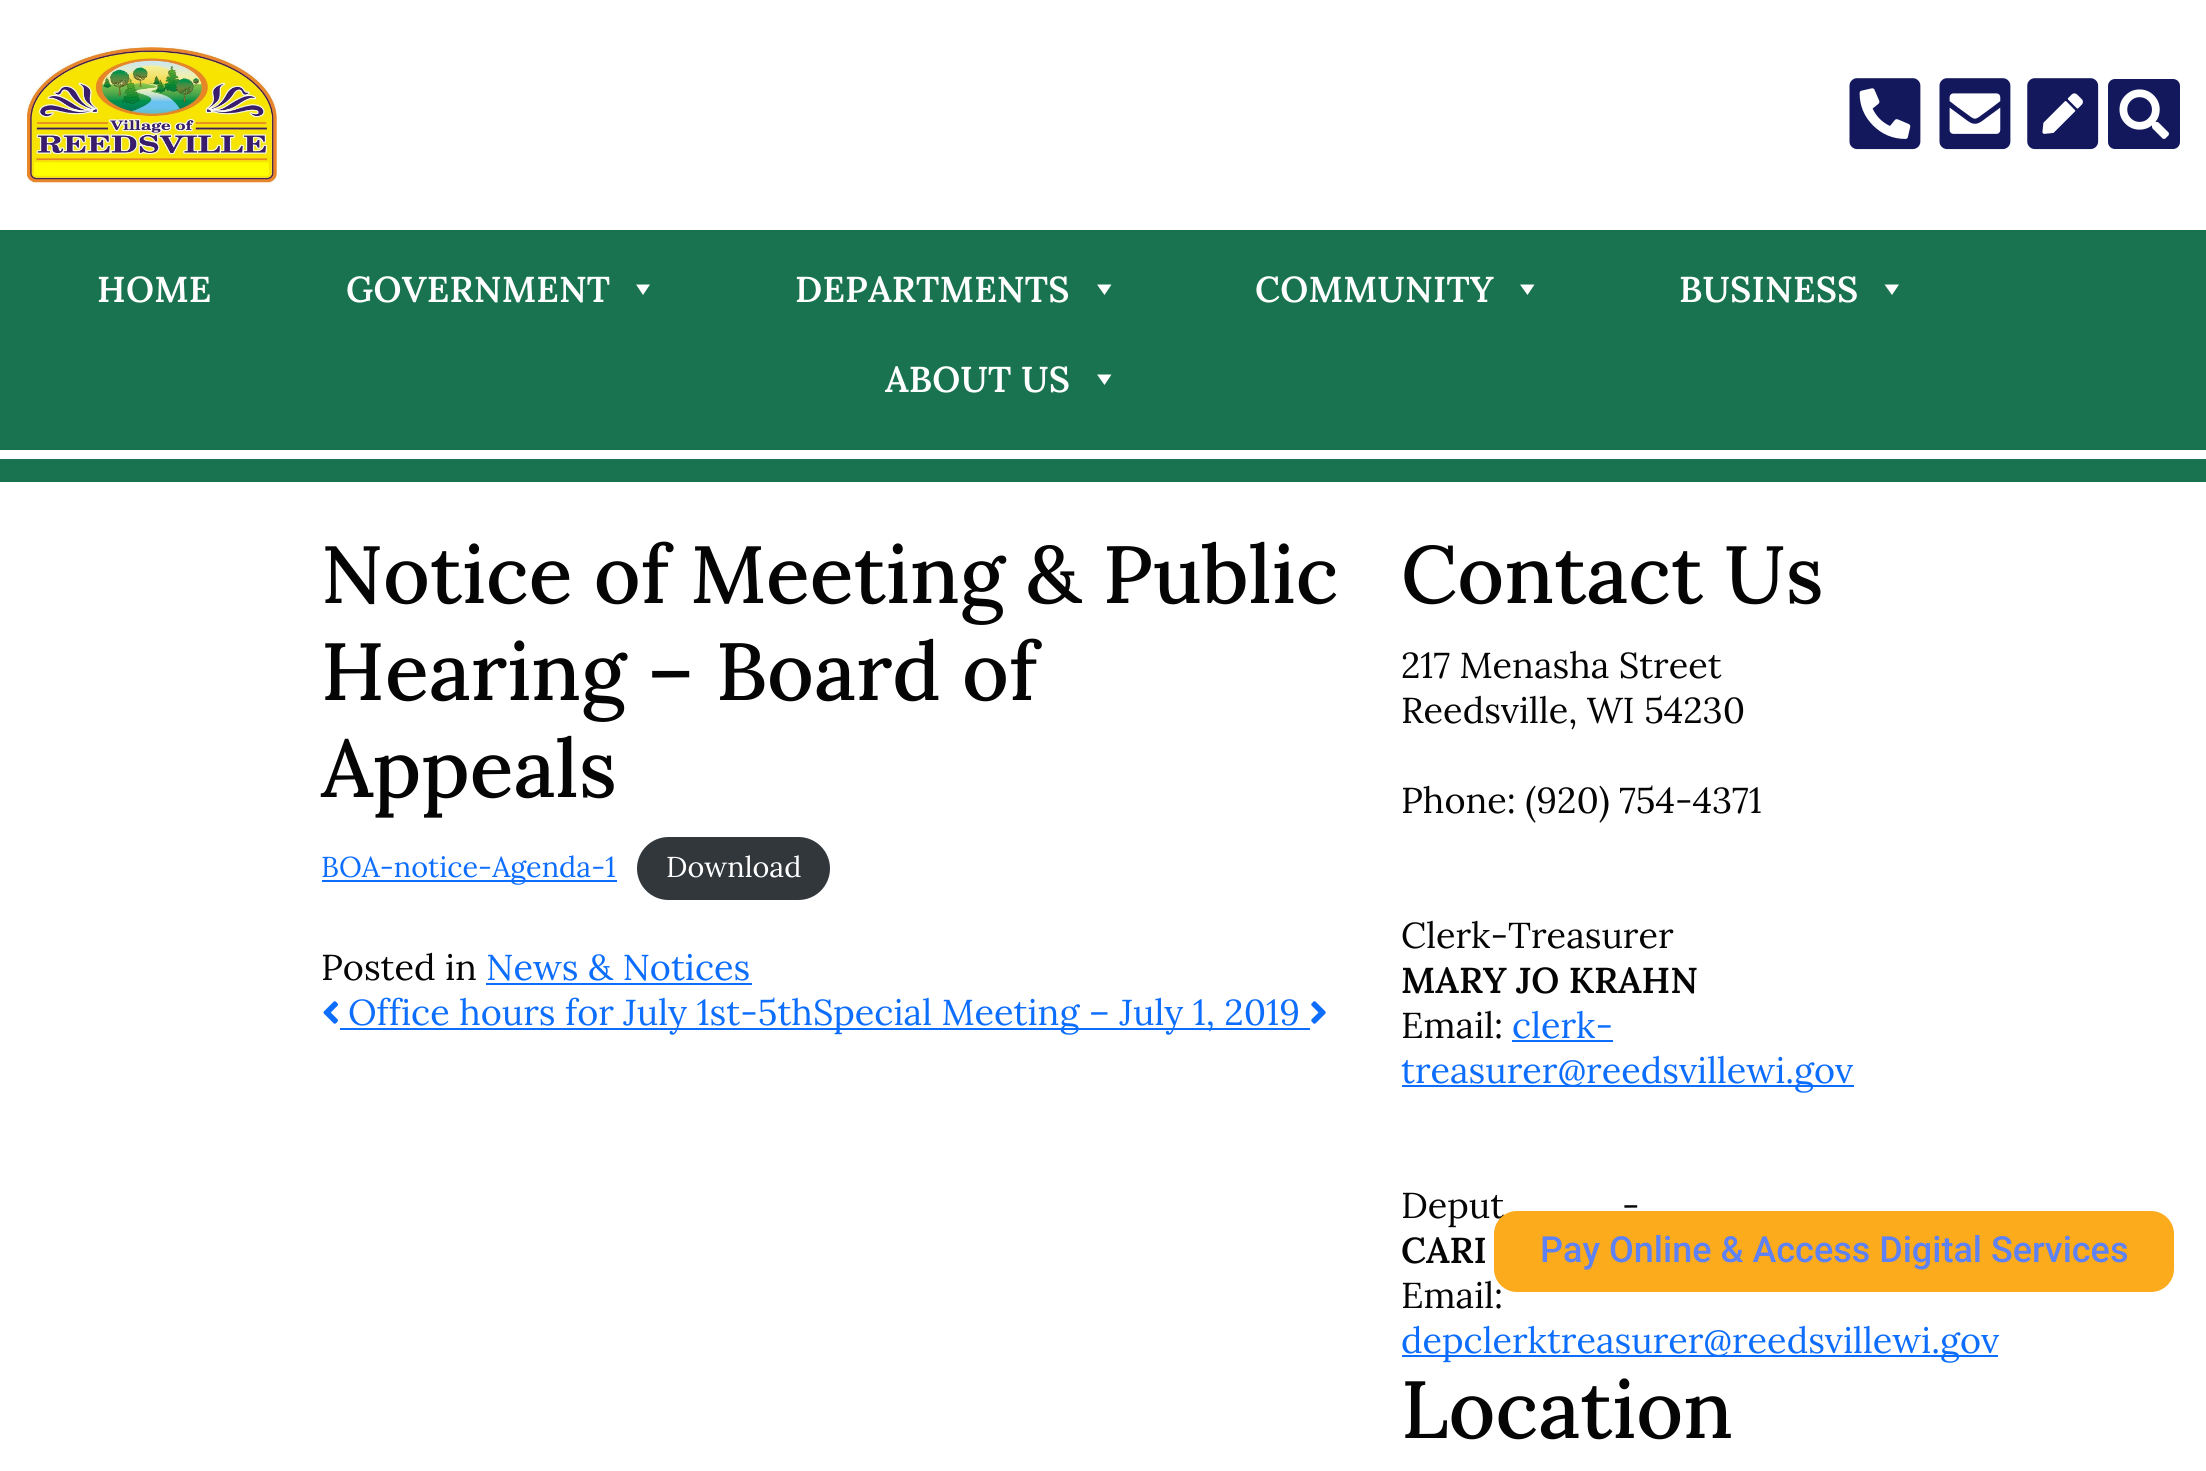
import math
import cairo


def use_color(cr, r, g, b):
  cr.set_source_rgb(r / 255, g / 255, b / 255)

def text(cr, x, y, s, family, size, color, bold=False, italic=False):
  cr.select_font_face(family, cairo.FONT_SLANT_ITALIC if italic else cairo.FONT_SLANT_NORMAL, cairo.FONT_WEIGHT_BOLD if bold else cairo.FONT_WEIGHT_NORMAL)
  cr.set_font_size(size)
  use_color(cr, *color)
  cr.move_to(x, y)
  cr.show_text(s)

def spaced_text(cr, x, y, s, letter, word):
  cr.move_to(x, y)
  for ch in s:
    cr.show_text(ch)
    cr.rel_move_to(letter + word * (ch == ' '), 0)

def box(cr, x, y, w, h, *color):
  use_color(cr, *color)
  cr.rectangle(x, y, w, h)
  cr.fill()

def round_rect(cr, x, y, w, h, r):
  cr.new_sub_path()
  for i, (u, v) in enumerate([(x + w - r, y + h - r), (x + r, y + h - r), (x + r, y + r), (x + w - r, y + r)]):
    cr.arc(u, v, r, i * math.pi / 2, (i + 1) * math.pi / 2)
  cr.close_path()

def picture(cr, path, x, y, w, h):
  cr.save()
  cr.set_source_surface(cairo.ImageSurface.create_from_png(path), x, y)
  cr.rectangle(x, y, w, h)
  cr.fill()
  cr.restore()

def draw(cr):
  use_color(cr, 255, 255, 255)
  cr.paint()
  box(cr, 0, 230, 2206, 252, 25, 115, 80)
  picture(cr, "img_01.png", 27, 47, 250, 136)
  picture(cr, "img_02.png", 1849, 78, 72, 72)
  picture(cr, "img_03.png", 1939, 78, 72, 72)
  picture(cr, "img_04.png", 2027, 78, 72, 72)
  use_color(cr, 19, 24, 93)
  round_rect(cr, 2108, 79, 72, 70, 7)
  cr.fill()
  picture(cr, "img_05.png", 2119, 89, 50, 50)
  use_color(cr, 255, 255, 255)
  cr.new_path()
  cr.move_to(650, 284.5)
  cr.line_to(643, 295)
  cr.line_to(636, 284.5)
  cr.close_path()
  cr.fill()
  cr.new_path()
  cr.move_to(1111.5, 284.5)
  cr.line_to(1104.5, 295)
  cr.line_to(1097, 284.5)
  cr.close_path()
  cr.fill()
  cr.new_path()
  cr.move_to(1534.5, 284.5)
  cr.line_to(1527.5, 295)
  cr.line_to(1520, 284.5)
  cr.close_path()
  cr.fill()
  cr.new_path()
  cr.move_to(1899, 284.5)
  cr.line_to(1892, 295)
  cr.line_to(1884.5, 284.5)
  cr.close_path()
  cr.fill()
  cr.new_path()
  cr.move_to(1111.5, 374.5)
  cr.line_to(1104.5, 385)
  cr.line_to(1097, 374.5)
  cr.close_path()
  cr.fill()
  box(cr, 0, 450, 2206, 9, 255, 255, 255)
  box(cr, 322, 880, 295, 2, 13, 110, 253)
  use_color(cr, 50, 55, 60)
  round_rect(cr, 637, 837, 193, 63, 31.5)
  cr.fill()
  box(cr, 486, 983, 266, 2, 13, 110, 253)
  picture(cr, "img_06.png", 323, 1001, 15, 23)
  box(cr, 340, 1028, 970, 2, 13, 110, 253)
  picture(cr, "img_07.png", 1311, 1001, 15, 23)
  box(cr, 1512, 1040, 101, 2, 13, 110, 253)
  box(cr, 1402, 1085, 452, 2, 13, 110, 253)
  box(cr, 1402, 1355, 596, 2, 13, 110, 253)
  cr.select_font_face("Lora SemiBold")
  cr.set_font_size(36)
  use_color(cr, 255, 255, 255)
  spaced_text(cr, 97, 302, "HOME", 0.25, 0)
  spaced_text(cr, 346, 302, "GOVERNMENT", 0.25, 0)
  spaced_text(cr, 795, 302, "DEPARTMENTS", 0.25, 0)
  spaced_text(cr, 1255, 302, "COMMUNITY", 0.25, 0)
  spaced_text(cr, 1679, 302, "BUSINESS", 0.25, 0)
  spaced_text(cr, 885, 392, "ABOUT US", 0.25, 0)
  text(cr, 321, 603, "Notice of Meeting & Public", "Lora Medium", 81, (5, 5, 5))
  text(cr, 321, 700, "Hearing – Board of", "Lora Medium", 81, (5, 5, 5))
  text(cr, 321, 797, "Appeals", "Lora Medium", 81, (5, 5, 5))
  text(cr, 321, 877, "BOA-notice-Agenda-1", "Lora", 28.75, (13, 110, 253))
  text(cr, 666, 877, "Download", "Lora", 28.75, (255, 255, 255))
  text(cr, 321, 980, "Posted in", "Lora", 36, (5, 5, 5))
  text(cr, 486, 980, "News & Notices", "Lora", 36, (13, 110, 253))
  text(cr, 348, 1025, "Office hours for July 1st-5thSpecial Meeting – July 1, 2019", "Lora", 36, (13, 110, 253))
  text(cr, 1401, 603, "Contact Us", "Lora Medium", 81, (5, 5, 5))
  text(cr, 1401, 678, "217 Menasha Street", "Lora", 36, (5, 5, 5))
  text(cr, 1401, 723, "Reedsville, WI 54230", "Lora", 36, (5, 5, 5))
  text(cr, 1401, 813, "Phone: (920) 754-4371", "Lora", 36, (5, 5, 5))
  text(cr, 1401, 948, "Clerk-Treasurer", "Lora", 36, (5, 5, 5))
  text(cr, 1401, 993, "MARY JO KRAHN", "Lora SemiBold", 36, (5, 5, 5))
  text(cr, 1401, 1038, "Email:", "Lora", 36, (5, 5, 5))
  text(cr, 1512, 1038, "clerk-", "Lora", 36, (13, 110, 253))
  text(cr, 1401, 1083, "treasurer@reedsvillewi.gov", "Lora", 36, (13, 110, 253))
  text(cr, 1401, 1218, "Deput", "Lora", 36, (5, 5, 5))
  text(cr, 1622, 1218, "-", "Lora", 36, (5, 5, 5))
  text(cr, 1401, 1263, "CARI", "Lora SemiBold", 36, (5, 5, 5))
  text(cr, 1401, 1308, "Email:", "Lora", 36, (5, 5, 5))
  text(cr, 1401, 1353, "depclerktreasurer@reedsvillewi.gov", "Lora", 36, (13, 110, 253))
  text(cr, 1401, 1438, "Location", "Lora Medium", 81, (5, 5, 5))
  use_color(cr, 252, 171, 28)
  round_rect(cr, 1494, 1211, 680, 81, 23)
  cr.fill()
  text(cr, 1540, 1262, "Pay Online & Access Digital Services", "Roboto Medium", 36, (94, 129, 244))


surface = cairo.ImageSurface(cairo.FORMAT_RGB24, 2206, 1471)
cr = cairo.Context(surface)
options = cairo.FontOptions()
options.set_hint_metrics(cairo.HINT_METRICS_OFF)
options.set_hint_style(cairo.HINT_STYLE_NONE)
cr.set_font_options(options)
cr.set_miter_limit(4)
draw(cr)
surface.write_to_png("out.png")
